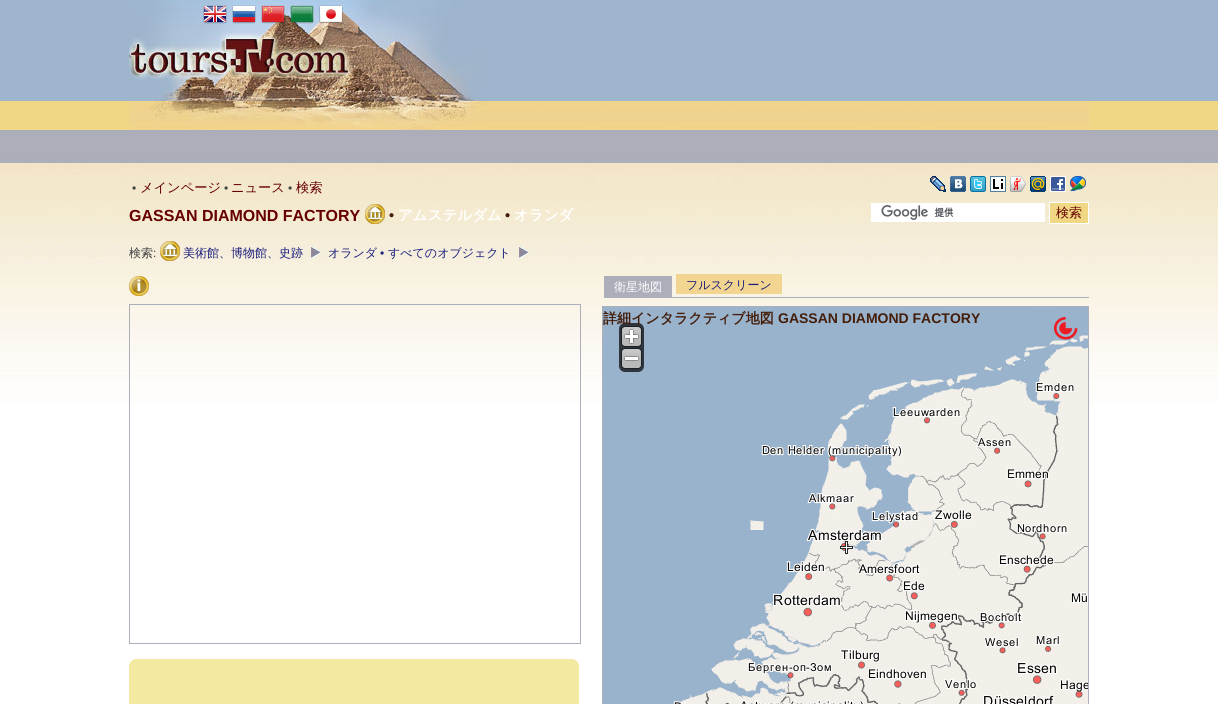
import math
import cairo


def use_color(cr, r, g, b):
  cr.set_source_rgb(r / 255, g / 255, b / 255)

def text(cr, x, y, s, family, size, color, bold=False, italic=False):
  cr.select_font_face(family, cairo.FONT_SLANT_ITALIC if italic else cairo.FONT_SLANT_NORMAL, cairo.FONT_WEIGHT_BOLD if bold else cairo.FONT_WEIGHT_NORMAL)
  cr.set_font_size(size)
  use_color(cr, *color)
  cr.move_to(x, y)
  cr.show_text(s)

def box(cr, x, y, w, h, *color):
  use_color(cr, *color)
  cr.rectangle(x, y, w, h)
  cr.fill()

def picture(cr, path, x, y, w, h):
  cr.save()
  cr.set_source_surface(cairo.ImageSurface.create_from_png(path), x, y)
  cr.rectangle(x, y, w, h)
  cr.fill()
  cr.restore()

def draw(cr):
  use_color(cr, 255, 255, 255)
  cr.paint()
  picture(cr, "img_01.png", 0, 0, 1218, 402)
  picture(cr, "img_02.png", 129, 0, 960, 130)
  picture(cr, "img_03.png", 203, 5, 24, 19)
  picture(cr, "img_04.png", 232, 5, 24, 19)
  picture(cr, "img_05.png", 261, 5, 24, 19)
  picture(cr, "img_06.png", 290, 5, 24, 19)
  picture(cr, "img_07.png", 319, 5, 24, 19)
  picture(cr, "img_08.png", 930, 176, 16, 16)
  picture(cr, "img_09.png", 950, 176, 16, 16)
  picture(cr, "img_10.png", 970, 176, 16, 16)
  picture(cr, "img_11.png", 990, 176, 16, 16)
  picture(cr, "img_12.png", 1010, 176, 16, 16)
  picture(cr, "img_13.png", 1030, 176, 16, 16)
  picture(cr, "img_14.png", 1050, 176, 16, 16)
  picture(cr, "img_15.png", 1070, 176, 16, 15)
  picture(cr, "img_16.png", 365, 204, 20, 20)
  box(cr, 871, 203, 174, 19, 255, 255, 255)
  picture(cr, "img_17.png", 881, 205, 73, 15)
  use_color(cr, 240, 215, 131)
  cr.rectangle(1049.5, 202.5, 39, 21)
  cr.fill_preserve()
  use_color(cr, 255, 255, 255)
  cr.set_line_width(1)
  cr.stroke()
  picture(cr, "img_18.png", 160, 241, 20, 20)
  picture(cr, "img_19.png", 311, 246, 10, 12)
  picture(cr, "img_19.png", 519, 246, 10, 12)
  picture(cr, "img_20.png", 129, 276, 20, 20)
  cr.rectangle(129.5, 304.5, 451, 339)
  use_color(cr, 172, 174, 186)
  cr.stroke()
  box(cr, 134, 659, 440, 1, 244, 233, 160)
  box(cr, 132, 660, 444, 1, 244, 233, 160)
  box(cr, 131, 661, 446, 1, 244, 233, 160)
  box(cr, 130, 662, 448, 2, 244, 233, 160)
  box(cr, 129, 664, 450, 40, 244, 233, 160)
  box(cr, 604, 297, 485, 1, 172, 174, 186)
  box(cr, 604, 276, 68, 21, 172, 174, 186)
  box(cr, 676, 274, 106, 20, 242, 213, 145)
  cr.rectangle(602.5, 306.5, 486, 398)
  use_color(cr, 172, 174, 186)
  cr.stroke()
  picture(cr, "img_21.png", 603, 307, 485, 397)
  text(cr, 132, 192, "•", "Liberation Sans", 12, (64, 64, 64))
  text(cr, 140, 192, "メインページ", "WenQuanYi Zen Hei Medium", 13.25, (102, 0, 0))
  text(cr, 224, 192, "•", "Liberation Sans", 12, (64, 64, 64))
  text(cr, 231, 192, "ニュース", "WenQuanYi Zen Hei Medium", 13.25, (102, 0, 0))
  text(cr, 288, 192, "•", "Liberation Sans", 12, (64, 64, 64))
  text(cr, 296, 192, "検索", "WenQuanYi Zen Hei Medium", 13.25, (102, 0, 0))
  text(cr, 129, 221, "GASSAN DIAMOND FACTORY", "Liberation Sans", 16, (102, 0, 0), bold=True)
  text(cr, 389, 220, "•", "Liberation Sans", 14.5, (69, 30, 9), bold=True)
  text(cr, 398, 220, "アムステルダム", "WenQuanYi Zen Hei", 14.5, (255, 255, 255), bold=True)
  text(cr, 505, 220, "•", "Liberation Sans", 14.5, (69, 30, 9), bold=True)
  text(cr, 514, 220, "オランダ", "WenQuanYi Zen Hei", 14.5, (255, 255, 255), bold=True)
  text(cr, 1056, 217, "検索", "WenQuanYi Zen Hei Medium", 13, (102, 0, 0))
  text(cr, 129, 257, "検索", "WenQuanYi Zen Hei Medium", 12, (64, 64, 64))
  text(cr, 153, 257, ":", "Liberation Sans", 12, (64, 64, 64))
  text(cr, 183, 257, "美術館、博物館、史跡", "WenQuanYi Zen Hei Medium", 12, (27, 29, 124))
  text(cr, 328, 257, "オランダ", "WenQuanYi Zen Hei Medium", 12, (27, 29, 124))
  text(cr, 380, 257, "•", "Liberation Sans", 12, (27, 29, 124))
  text(cr, 388, 257, "すべてのオブジェクト", "WenQuanYi Zen Hei Medium", 12, (27, 29, 124))
  text(cr, 614, 291, "衛星地図", "WenQuanYi Zen Hei Medium", 12, (255, 255, 255))
  text(cr, 686, 289, "フルスクリーン", "WenQuanYi Zen Hei Medium", 12, (27, 29, 124))
  text(cr, 603, 323, "詳細インタラクティブ地図", "WenQuanYi Zen Hei", 14, (69, 30, 9), bold=True)
  text(cr, 778, 323, "GASSAN DIAMOND FACTORY", "Liberation Sans", 14, (69, 30, 9), bold=True)


surface = cairo.ImageSurface(cairo.FORMAT_RGB24, 1218, 704)
cr = cairo.Context(surface)
options = cairo.FontOptions()
options.set_hint_metrics(cairo.HINT_METRICS_OFF)
options.set_hint_style(cairo.HINT_STYLE_NONE)
cr.set_font_options(options)
cr.set_miter_limit(4)
draw(cr)
surface.write_to_png("out.png")
